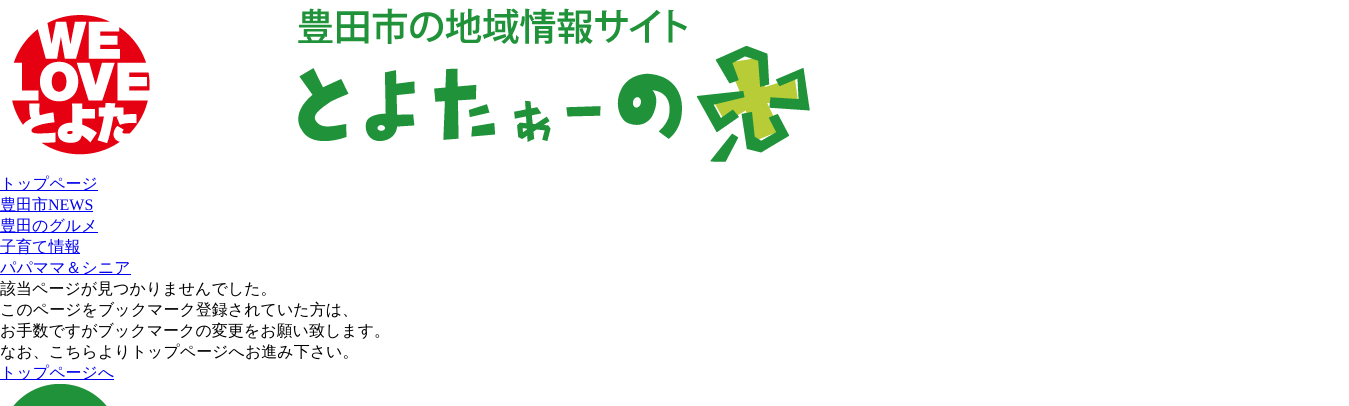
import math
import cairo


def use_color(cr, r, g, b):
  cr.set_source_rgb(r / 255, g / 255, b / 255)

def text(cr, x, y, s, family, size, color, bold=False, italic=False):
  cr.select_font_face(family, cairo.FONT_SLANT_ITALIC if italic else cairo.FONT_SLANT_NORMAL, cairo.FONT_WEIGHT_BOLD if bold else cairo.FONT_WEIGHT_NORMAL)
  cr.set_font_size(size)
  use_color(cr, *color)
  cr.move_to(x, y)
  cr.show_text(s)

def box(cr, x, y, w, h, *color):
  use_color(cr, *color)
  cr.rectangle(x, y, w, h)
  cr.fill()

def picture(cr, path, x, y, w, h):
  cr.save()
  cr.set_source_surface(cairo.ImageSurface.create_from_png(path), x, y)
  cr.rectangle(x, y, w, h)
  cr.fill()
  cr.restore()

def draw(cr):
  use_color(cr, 255, 255, 255)
  cr.paint()
  picture(cr, "img_01.png", 12, 8, 798, 154)
  box(cr, 0, 190, 98, 1, 0, 0, 238)
  box(cr, 0, 211, 93, 1, 0, 0, 238)
  box(cr, 0, 232, 98, 1, 0, 0, 238)
  box(cr, 0, 253, 80, 1, 0, 0, 238)
  box(cr, 0, 274, 131, 1, 0, 0, 238)
  box(cr, 0, 379, 114, 1, 0, 0, 238)
  picture(cr, "img_02.png", 13, 384, 94, 22)
  text(cr, 0, 189, "トップページ", "WenQuanYi Zen Hei Medium", 16, (0, 0, 238))
  text(cr, 0, 210, "豊田市", "WenQuanYi Zen Hei Medium", 16, (0, 0, 238))
  text(cr, 48, 210, "NEWS", "Liberation Serif", 16, (0, 0, 238))
  text(cr, 0, 231, "豊田のグルメ", "WenQuanYi Zen Hei Medium", 16, (0, 0, 238))
  text(cr, 0, 252, "子育て情報", "WenQuanYi Zen Hei Medium", 16, (0, 0, 238))
  text(cr, 0, 273, "パパママ＆シニア", "WenQuanYi Zen Hei Medium", 16, (0, 0, 238))
  text(cr, 0, 294, "該当ページが見つかりませんでした。", "WenQuanYi Zen Hei Medium", 16, (0, 0, 0))
  text(cr, 0, 315, "このページをブックマーク登録されていた方は、", "WenQuanYi Zen Hei Medium", 16, (0, 0, 0))
  text(cr, 0, 336, "お手数ですがブックマークの変更をお願い致します。", "WenQuanYi Zen Hei Medium", 16, (0, 0, 0))
  text(cr, 0, 357, "なお、こちらよりトップページへお進み下さい。", "WenQuanYi Zen Hei Medium", 16, (0, 0, 0))
  text(cr, 0, 378, "トップページへ", "WenQuanYi Zen Hei Medium", 16, (0, 0, 238))


surface = cairo.ImageSurface(cairo.FORMAT_RGB24, 1349, 406)
cr = cairo.Context(surface)
options = cairo.FontOptions()
options.set_hint_metrics(cairo.HINT_METRICS_OFF)
options.set_hint_style(cairo.HINT_STYLE_NONE)
cr.set_font_options(options)
cr.set_miter_limit(4)
draw(cr)
surface.write_to_png("out.png")
